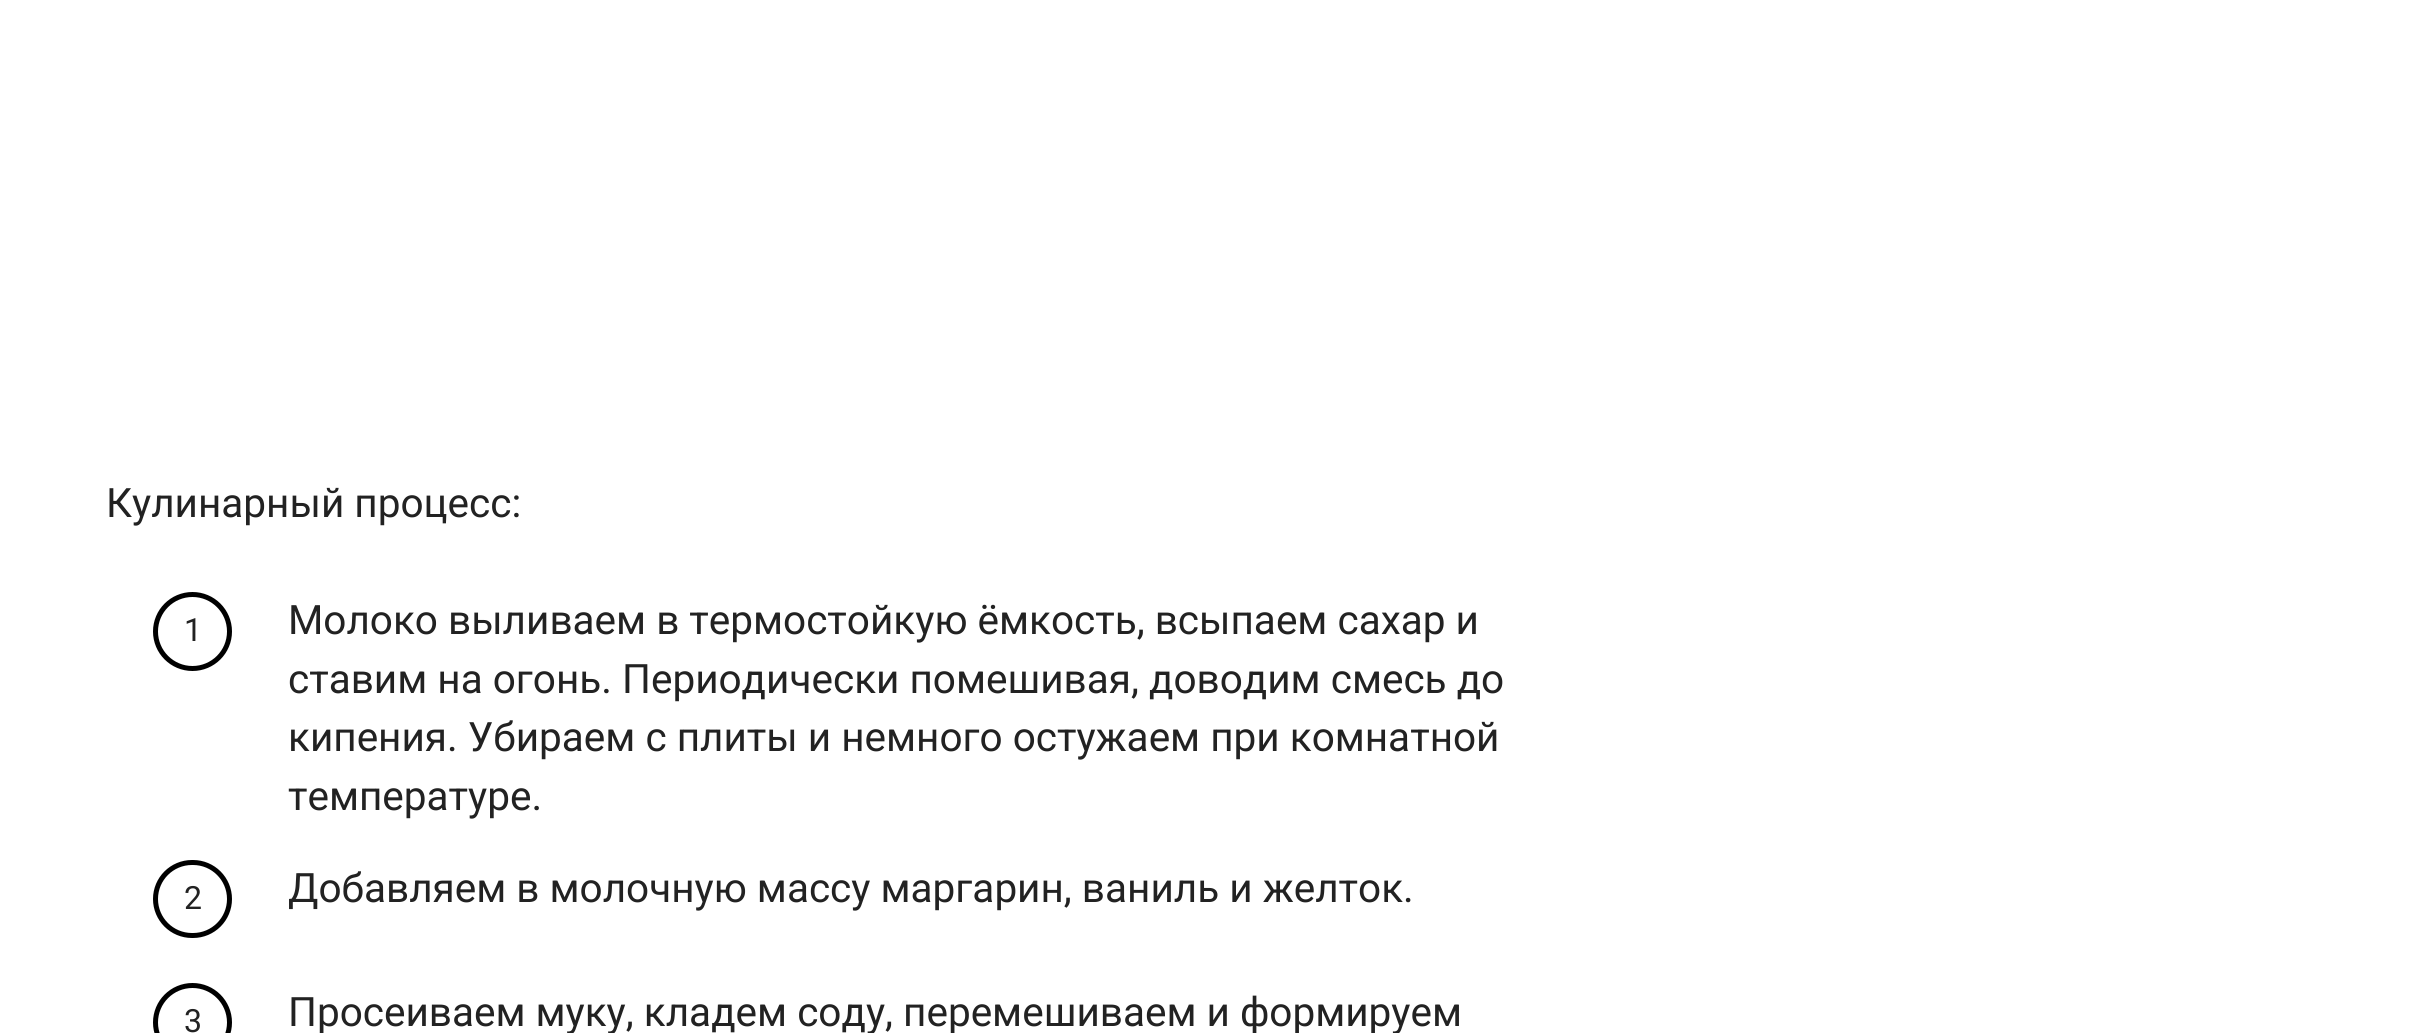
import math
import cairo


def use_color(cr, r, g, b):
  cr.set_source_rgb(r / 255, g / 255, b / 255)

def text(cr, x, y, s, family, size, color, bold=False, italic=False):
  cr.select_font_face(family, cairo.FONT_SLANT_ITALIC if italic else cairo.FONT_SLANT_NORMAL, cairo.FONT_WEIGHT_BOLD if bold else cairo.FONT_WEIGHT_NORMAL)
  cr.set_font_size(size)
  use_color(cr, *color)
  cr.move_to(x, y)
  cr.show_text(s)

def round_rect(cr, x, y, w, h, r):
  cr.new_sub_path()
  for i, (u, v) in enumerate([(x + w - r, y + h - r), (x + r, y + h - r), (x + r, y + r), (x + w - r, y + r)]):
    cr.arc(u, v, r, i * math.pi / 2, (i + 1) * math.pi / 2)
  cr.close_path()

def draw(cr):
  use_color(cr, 255, 255, 255)
  cr.paint()
  cr.arc(192.5, 631.5, 37, 0, 2 * math.pi)
  use_color(cr, 0, 0, 0)
  cr.set_line_width(5)
  cr.stroke()
  round_rect(cr, 155.5, 862.5, 74, 73, 36.5)
  cr.stroke()
  cr.arc(192.5, 1022.5, 37, 0, 2 * math.pi)
  cr.stroke()
  text(cr, 106, 517, "Кулинарный процесс:", "Roboto", 40.5, (34, 34, 34))
  text(cr, 184, 641, "1", "Roboto", 32, (34, 34, 34))
  text(cr, 288, 634, "Молоко выливаем в термостойкую ёмкость, всыпаем сахар и", "Roboto", 40.5, (34, 34, 34))
  text(cr, 288, 693, "ставим на огонь. Периодически помешивая, доводим смесь до", "Roboto", 40.5, (34, 34, 34))
  text(cr, 288, 751, "кипения. Убираем с плиты и немного остужаем при комнатной", "Roboto", 40.5, (34, 34, 34))
  text(cr, 288, 810, "температуре.", "Roboto", 40.5, (34, 34, 34))
  text(cr, 184, 909, "2", "Roboto", 32, (34, 34, 34))
  text(cr, 288, 902, "Добавляем в молочную массу маргарин, ваниль и желток.", "Roboto", 40.5, (34, 34, 34))
  text(cr, 184, 1032, "3", "Roboto", 32, (34, 34, 34))
  text(cr, 288, 1026, "Просеиваем муку, кладем соду, перемешиваем и формируем", "Roboto", 40.5, (34, 34, 34))


surface = cairo.ImageSurface(cairo.FORMAT_RGB24, 2415, 1033)
cr = cairo.Context(surface)
options = cairo.FontOptions()
options.set_hint_metrics(cairo.HINT_METRICS_OFF)
options.set_hint_style(cairo.HINT_STYLE_NONE)
cr.set_font_options(options)
cr.set_miter_limit(4)
draw(cr)
surface.write_to_png("out.png")
